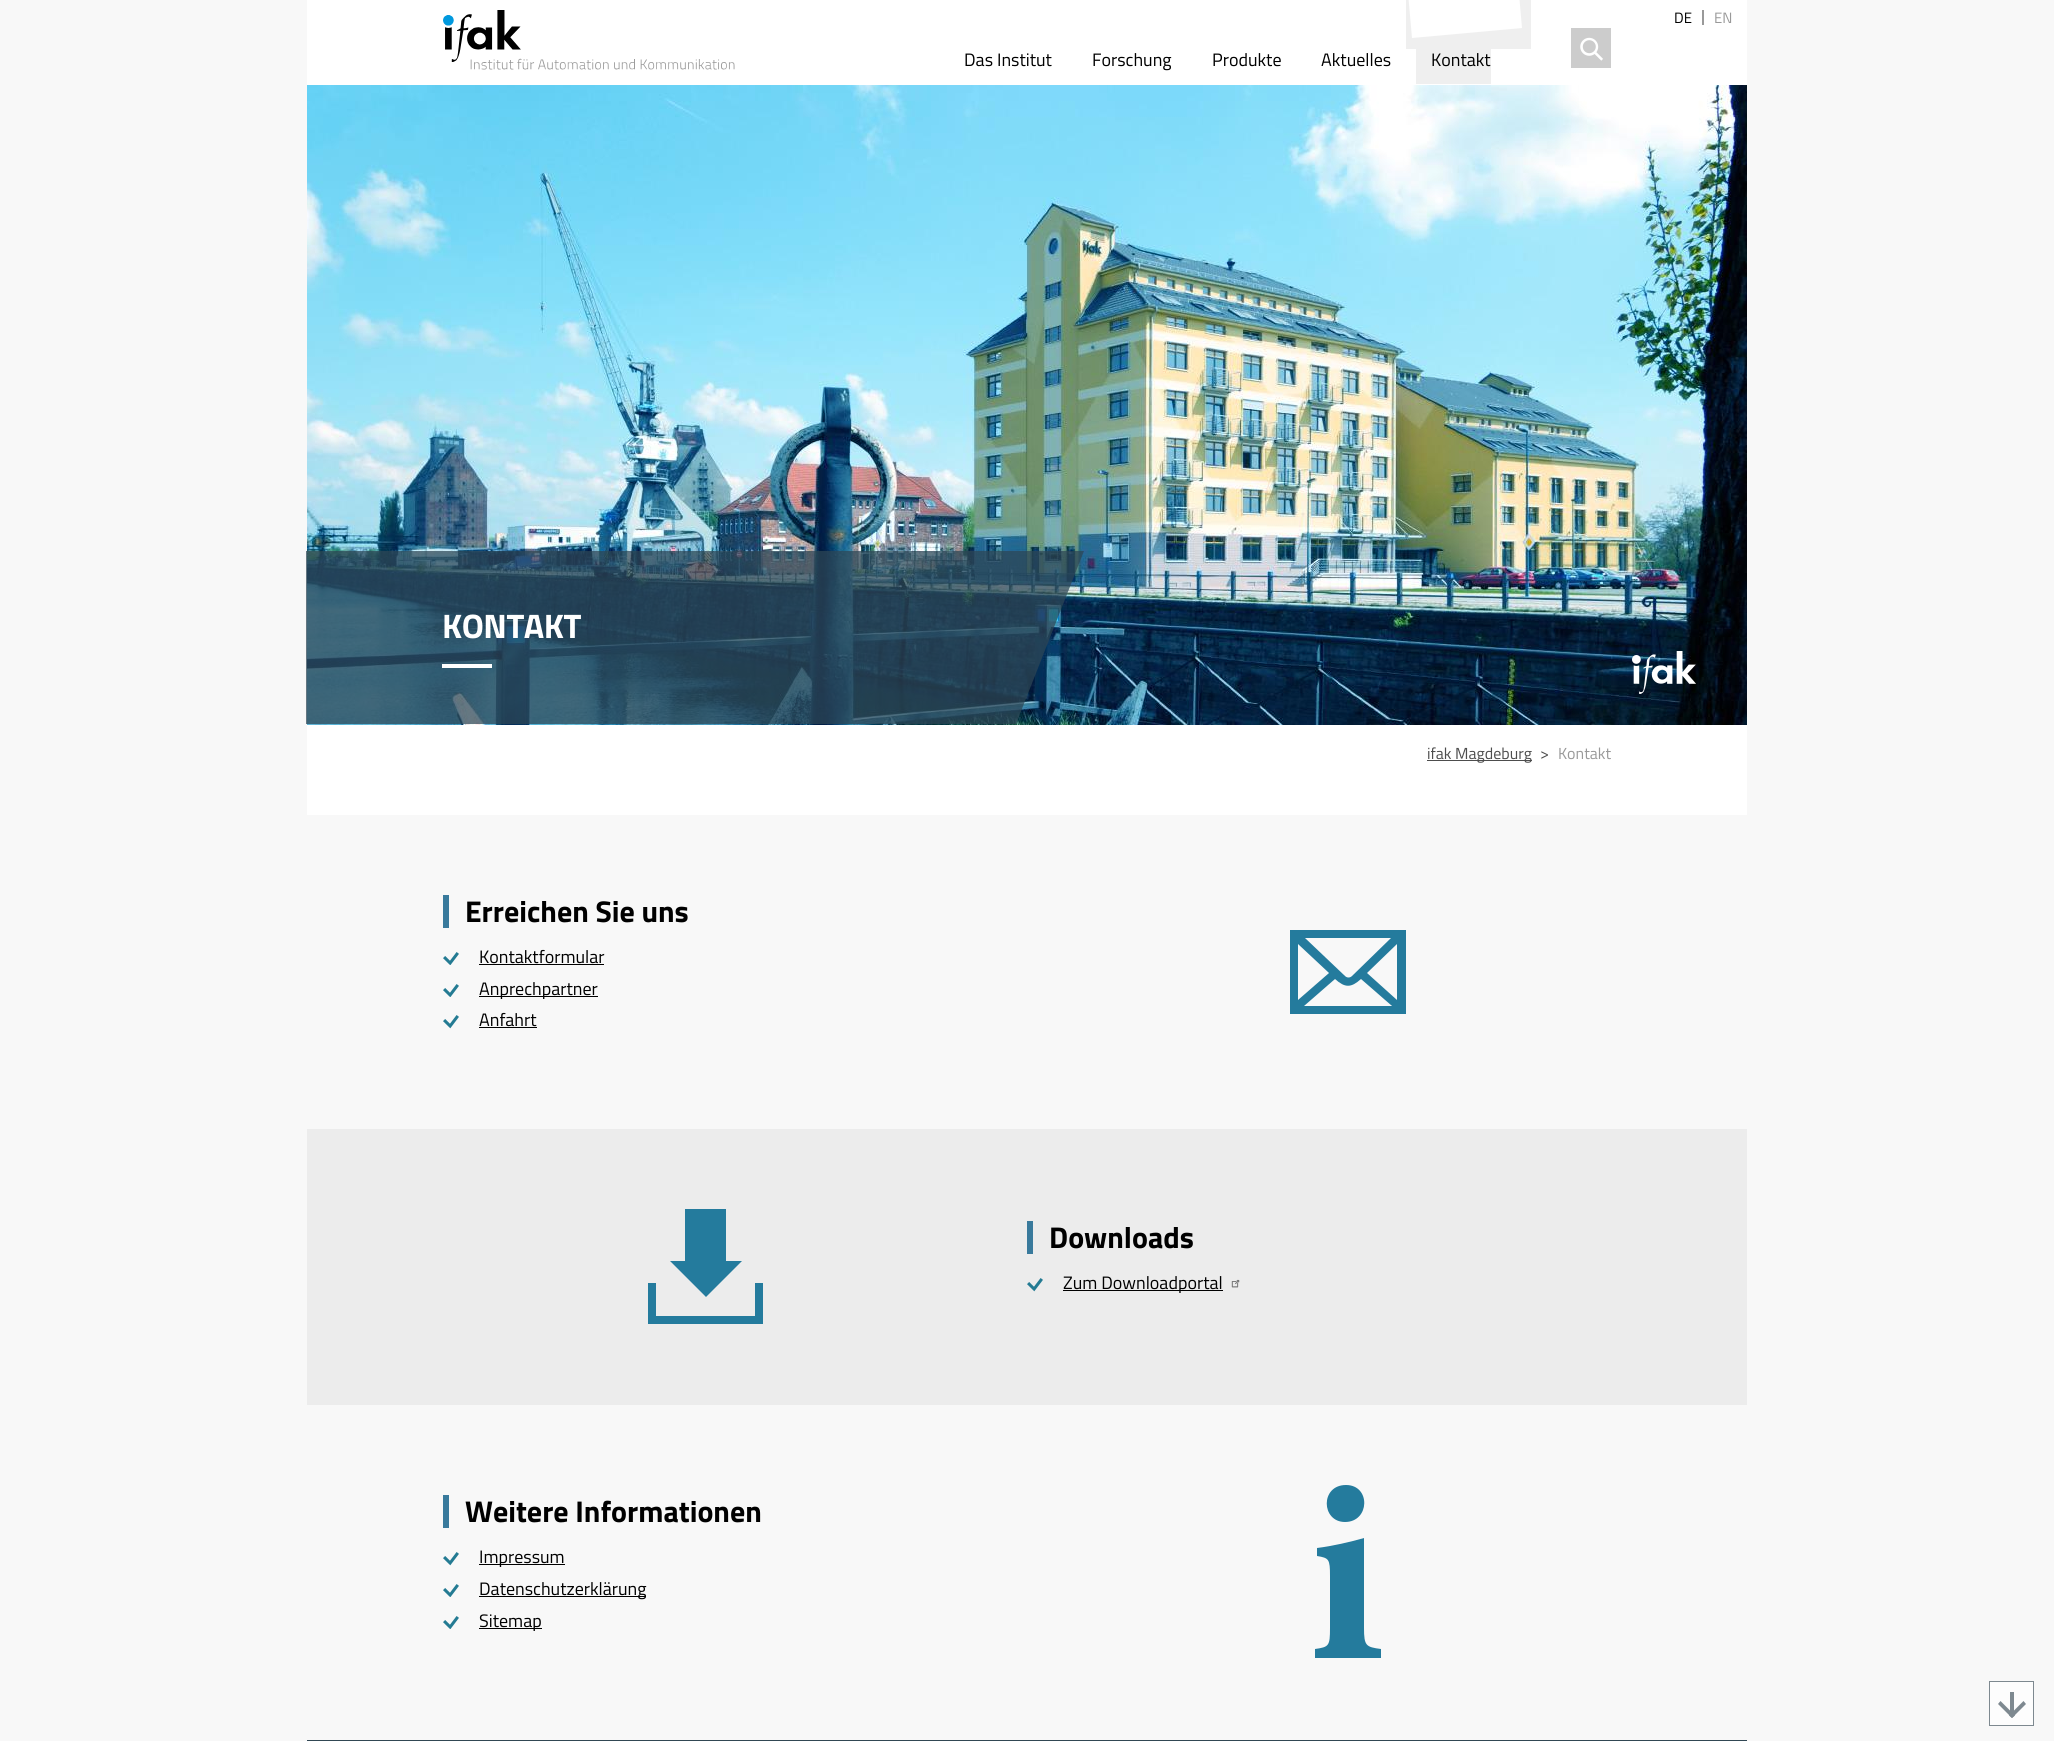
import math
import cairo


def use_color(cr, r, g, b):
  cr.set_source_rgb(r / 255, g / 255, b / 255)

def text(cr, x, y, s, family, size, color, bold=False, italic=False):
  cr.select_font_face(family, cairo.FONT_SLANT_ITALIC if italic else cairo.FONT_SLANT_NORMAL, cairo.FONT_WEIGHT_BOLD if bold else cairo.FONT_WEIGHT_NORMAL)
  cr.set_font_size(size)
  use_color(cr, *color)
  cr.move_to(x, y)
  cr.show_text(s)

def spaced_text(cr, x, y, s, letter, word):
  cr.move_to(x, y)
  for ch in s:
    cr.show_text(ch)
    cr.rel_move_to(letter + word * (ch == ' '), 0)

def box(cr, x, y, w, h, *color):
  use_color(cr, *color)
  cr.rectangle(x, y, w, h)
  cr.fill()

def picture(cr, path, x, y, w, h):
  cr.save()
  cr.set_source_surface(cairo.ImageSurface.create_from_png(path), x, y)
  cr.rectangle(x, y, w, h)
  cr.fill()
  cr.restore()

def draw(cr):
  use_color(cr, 248, 248, 248)
  cr.paint()
  box(cr, 307, 0, 1440, 815, 255, 255, 255)
  picture(cr, "img_01.png", 443, 10, 292, 60)
  box(cr, 1702, 10, 2, 15, 153, 153, 153)
  box(cr, 1416, 49, 75, 35, 239, 239, 239)
  box(cr, 1406, 0, 125, 49, 239, 239, 239)
  use_color(cr, 255, 255, 255)
  cr.new_path()
  cr.move_to(1406, -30)
  cr.line_to(1516, -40)
  cr.line_to(1522, 28)
  cr.line_to(1412, 38)
  cr.close_path()
  cr.fill()
  box(cr, 1571, 28, 40, 40, 204, 204, 204)
  picture(cr, "img_02.png", 1580, 37, 23, 24)
  picture(cr, "img_03.png", 307, 85, 1440, 640)
  picture(cr, "img_04.png", 1632, 651, 64, 43)
  cr.set_source_rgba(0.18, 0.278, 0.337, 0.73)
  cr.new_path()
  cr.move_to(306, 724)
  cr.line_to(306, 551)
  cr.line_to(1084, 551)
  cr.line_to(1016, 724)
  cr.close_path()
  cr.fill()
  box(cr, 442, 664, 50, 4, 255, 255, 255)
  box(cr, 1427, 760, 105, 1, 77, 77, 77)
  box(cr, 443, 895, 6, 33, 57, 122, 156)
  picture(cr, "img_05.png", 443, 952, 16, 13)
  box(cr, 479, 964, 125, 1, 0, 0, 0)
  picture(cr, "img_05.png", 443, 984, 16, 13)
  box(cr, 479, 996, 119, 1, 0, 0, 0)
  picture(cr, "img_06.png", 443, 1015, 16, 14)
  box(cr, 479, 1027, 58, 1, 0, 0, 0)
  cr.save()
  cr.rectangle(1290, 930, 116, 84)
  cr.clip()
  use_color(cr, 36, 123, 157)
  cr.new_path()
  cr.move_to(1290, 930)
  cr.line_to(1290, 1015)
  cr.line_to(1406, 1015)
  cr.line_to(1406, 930)
  cr.close_path()
  cr.move_to(1352, 976)
  cr.curve_to(1350, 978, 1347, 978, 1345, 976)
  cr.line_to(1305, 938)
  cr.line_to(1391, 938)
  cr.close_path()
  cr.move_to(1329, 973)
  cr.line_to(1298, 1000)
  cr.line_to(1298, 944)
  cr.close_path()
  cr.move_to(1335, 979)
  cr.curve_to(1345, 988, 1351, 988, 1361, 979)
  cr.line_to(1392, 1006)
  cr.line_to(1304, 1006)
  cr.close_path()
  cr.move_to(1367, 973)
  cr.line_to(1397, 944)
  cr.line_to(1397, 1000)
  cr.close_path()
  cr.fill()
  cr.restore()
  box(cr, 307, 1129, 1440, 276, 236, 236, 236)
  use_color(cr, 36, 123, 157)
  cr.new_path()
  cr.move_to(763, 1324)
  cr.line_to(648, 1324)
  cr.line_to(648, 1283)
  cr.line_to(656, 1283)
  cr.line_to(656, 1316)
  cr.line_to(755, 1316)
  cr.line_to(755, 1283)
  cr.line_to(763, 1283)
  cr.close_path()
  cr.fill()
  cr.new_path()
  cr.move_to(726, 1261)
  cr.line_to(726, 1209)
  cr.line_to(685, 1209)
  cr.line_to(685, 1261)
  cr.line_to(670, 1261)
  cr.line_to(706, 1297)
  cr.line_to(742, 1261)
  cr.close_path()
  cr.fill()
  box(cr, 1027, 1221, 6, 33, 57, 122, 156)
  picture(cr, "img_07.png", 1027, 1278, 16, 14)
  box(cr, 1063, 1290, 160, 1, 0, 0, 0)
  picture(cr, "img_08.png", 1231, 1279, 9, 9)
  box(cr, 443, 1495, 6, 33, 57, 122, 156)
  picture(cr, "img_06.png", 443, 1552, 16, 14)
  box(cr, 479, 1564, 86, 1, 0, 0, 0)
  picture(cr, "img_05.png", 443, 1584, 16, 13)
  box(cr, 479, 1596, 167, 1, 0, 0, 0)
  picture(cr, "img_05.png", 443, 1616, 16, 13)
  box(cr, 479, 1628, 63, 1, 0, 0, 0)
  use_color(cr, 36, 123, 157)
  cr.new_path()
  cr.move_to(1315, 1658)
  cr.line_to(1315, 1649)
  cr.curve_to(1329, 1647, 1330, 1646, 1330, 1628)
  cr.line_to(1330, 1576)
  cr.curve_to(1330, 1559, 1329, 1558, 1317, 1556)
  cr.line_to(1317, 1548)
  cr.curve_to(1333, 1546, 1350, 1542, 1364, 1538)
  cr.line_to(1364, 1628)
  cr.curve_to(1364, 1646, 1366, 1647, 1381, 1649)
  cr.line_to(1381, 1658)
  cr.close_path()
  cr.move_to(1345, 1522)
  cr.curve_to(1321, 1522, 1320, 1485, 1346, 1485)
  cr.curve_to(1371, 1485, 1370, 1522, 1345, 1522)
  cr.close_path()
  cr.fill()
  use_color(cr, 253, 253, 253)
  cr.rectangle(1989.5, 1681.5, 44, 44)
  cr.fill_preserve()
  use_color(cr, 126, 137, 144)
  cr.set_line_width(1)
  cr.stroke()
  cr.new_path()
  cr.move_to(2026, 1704)
  cr.line_to(2012, 1718)
  cr.line_to(2009, 1715.5)
  cr.line_to(2023.5, 1701)
  cr.close_path()
  cr.fill()
  cr.new_path()
  cr.move_to(2015, 1715.5)
  cr.line_to(2012, 1718)
  cr.line_to(1998, 1704)
  cr.line_to(2000.5, 1701)
  cr.close_path()
  cr.fill()
  box(cr, 2010, 1692, 4, 23, 126, 137, 144)
  box(cr, 307, 1740, 1440, 1, 49, 71, 84)
  text(cr, 1674, 23, "DE", "Titillium Web", 15, (0, 0, 0))
  text(cr, 1714, 23, "EN", "Titillium Web", 15, (153, 153, 153))
  text(cr, 964, 66, "Das Institut", "Titillium Web", 18, (0, 0, 0))
  text(cr, 1092, 66, "Forschung", "Titillium Web", 18, (0, 0, 0))
  text(cr, 1212, 66, "Produkte", "Titillium Web", 18, (0, 0, 0))
  text(cr, 1321, 66, "Aktuelles", "Titillium Web", 18, (0, 0, 0))
  text(cr, 1431, 66, "Kontakt", "Titillium Web", 18, (0, 0, 0))
  cr.select_font_face("Titillium Web", cairo.FONT_SLANT_NORMAL, cairo.FONT_WEIGHT_BOLD)
  cr.set_font_size(34)
  use_color(cr, 255, 255, 255)
  spaced_text(cr, 442, 638, "KONTAKT", -0.5, 0)
  text(cr, 1427, 759, "ifak Magdeburg", "Titillium Web", 16, (77, 77, 77))
  text(cr, 1540, 759, ">", "Titillium Web", 16, (77, 77, 77))
  text(cr, 1558, 759, "Kontakt", "Titillium Web", 16, (153, 153, 153))
  text(cr, 465, 922, "Erreichen Sie uns", "Titillium Web", 30, (0, 0, 0), bold=True)
  text(cr, 479, 963, "Kontaktformular", "Titillium Web", 18, (0, 0, 0))
  text(cr, 479, 995, "Anprechpartner", "Titillium Web", 18, (0, 0, 0))
  text(cr, 479, 1026, "Anfahrt", "Titillium Web", 18, (0, 0, 0))
  text(cr, 1049, 1248, "Downloads", "Titillium Web", 30, (0, 0, 0), bold=True)
  text(cr, 1063, 1289, "Zum Downloadportal", "Titillium Web", 18, (0, 0, 0))
  text(cr, 465, 1522, "Weitere Informationen", "Titillium Web", 30, (0, 0, 0), bold=True)
  text(cr, 479, 1563, "Impressum", "Titillium Web", 18, (0, 0, 0))
  text(cr, 479, 1595, "Datenschutzerklärung", "Titillium Web", 18, (0, 0, 0))
  text(cr, 479, 1627, "Sitemap", "Titillium Web", 18, (0, 0, 0))


surface = cairo.ImageSurface(cairo.FORMAT_RGB24, 2054, 1741)
cr = cairo.Context(surface)
options = cairo.FontOptions()
options.set_hint_metrics(cairo.HINT_METRICS_OFF)
options.set_hint_style(cairo.HINT_STYLE_NONE)
cr.set_font_options(options)
cr.set_miter_limit(4)
draw(cr)
surface.write_to_png("out.png")
